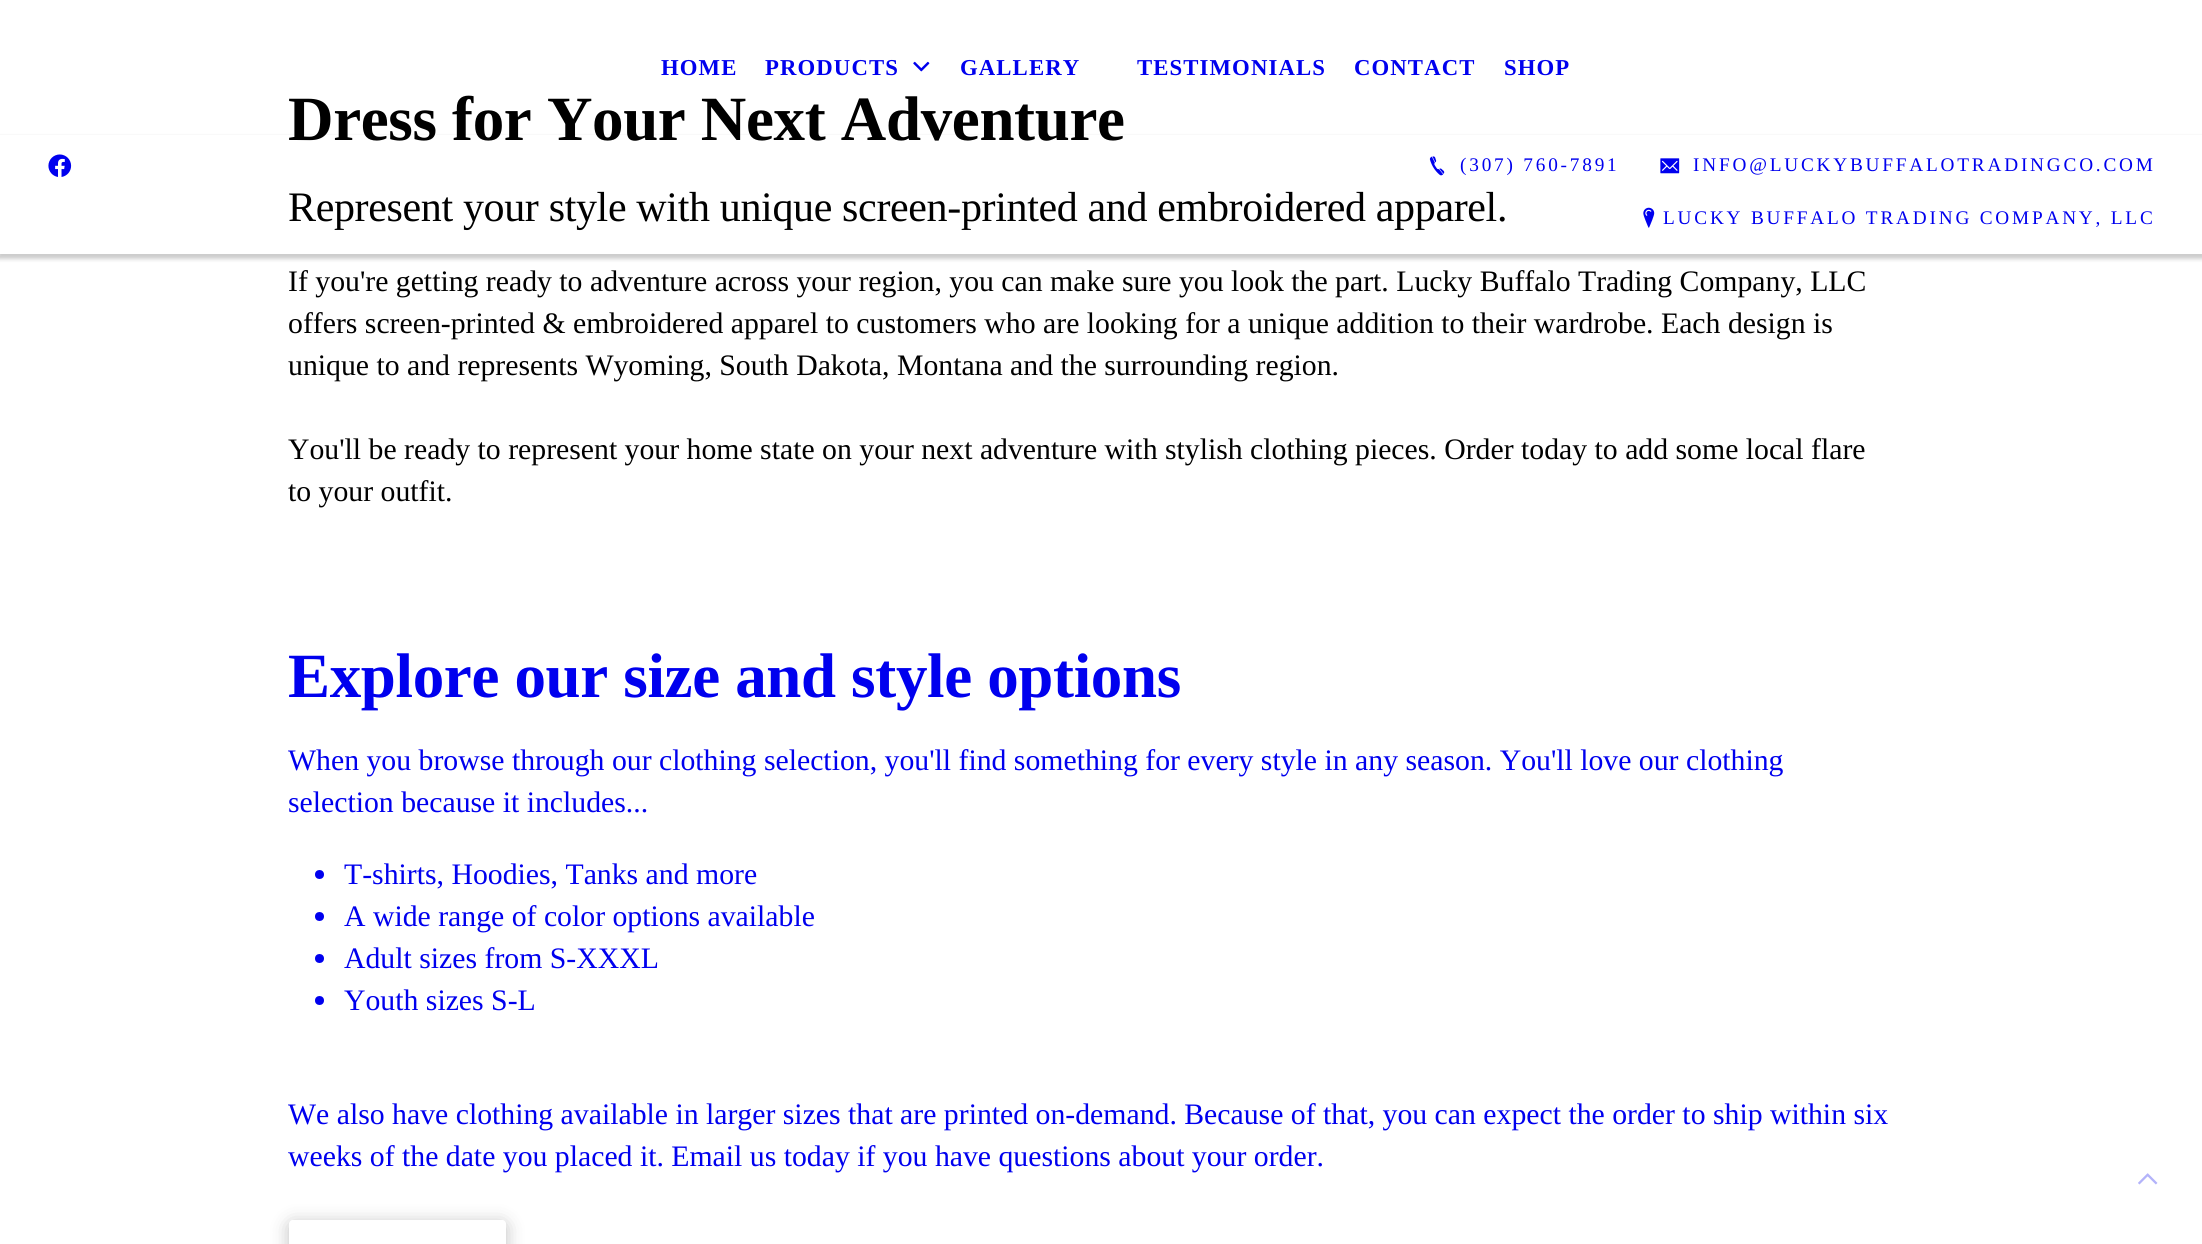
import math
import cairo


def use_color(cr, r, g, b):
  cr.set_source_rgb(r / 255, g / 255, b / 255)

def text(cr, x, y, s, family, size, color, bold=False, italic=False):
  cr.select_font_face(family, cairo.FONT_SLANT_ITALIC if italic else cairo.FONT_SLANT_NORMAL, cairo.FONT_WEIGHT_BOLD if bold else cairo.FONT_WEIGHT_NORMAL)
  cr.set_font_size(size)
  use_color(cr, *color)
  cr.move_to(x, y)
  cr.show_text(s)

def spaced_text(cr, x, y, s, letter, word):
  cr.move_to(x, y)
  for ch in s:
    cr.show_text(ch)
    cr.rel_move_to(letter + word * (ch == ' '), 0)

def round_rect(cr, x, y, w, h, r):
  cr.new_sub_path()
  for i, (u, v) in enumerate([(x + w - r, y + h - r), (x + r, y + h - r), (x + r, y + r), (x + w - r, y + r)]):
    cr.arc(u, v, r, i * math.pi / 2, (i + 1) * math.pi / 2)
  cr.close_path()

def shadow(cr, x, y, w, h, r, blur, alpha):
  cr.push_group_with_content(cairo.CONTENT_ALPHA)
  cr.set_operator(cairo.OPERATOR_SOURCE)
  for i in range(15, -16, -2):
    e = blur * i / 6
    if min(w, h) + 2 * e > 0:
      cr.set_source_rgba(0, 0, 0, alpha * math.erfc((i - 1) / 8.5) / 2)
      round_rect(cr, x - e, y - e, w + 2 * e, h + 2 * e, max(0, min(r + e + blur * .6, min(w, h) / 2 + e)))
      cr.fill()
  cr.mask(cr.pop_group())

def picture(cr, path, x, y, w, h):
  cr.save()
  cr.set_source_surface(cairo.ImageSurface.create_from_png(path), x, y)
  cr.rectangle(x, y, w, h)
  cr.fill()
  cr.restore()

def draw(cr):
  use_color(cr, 255, 255, 255)
  cr.paint()
  cr.save()
  cr.set_fill_rule(cairo.FILL_RULE_EVEN_ODD)
  cr.new_path()
  cr.move_to(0, 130)
  cr.line_to(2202, 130)
  cr.line_to(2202, 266)
  cr.line_to(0, 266)
  cr.close_path()
  cr.move_to(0, 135)
  cr.line_to(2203, 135)
  cr.line_to(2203, 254)
  cr.line_to(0, 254)
  cr.close_path()
  cr.clip()
  use_color(cr, 0, 0, 0)
  shadow(cr, -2, 137, 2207, 122, 0, 2, 0.2)
  cr.restore()
  picture(cr, "img_01.png", 48, 154, 24, 23)
  picture(cr, "img_02.png", 1429, 156, 16, 20)
  picture(cr, "img_03.png", 1660, 158, 20, 16)
  picture(cr, "img_04.png", 1643, 207, 12, 21)
  use_color(cr, 0, 0, 238)
  cr.arc(319.5, 874.5, 4.5, 0, 2 * math.pi)
  cr.fill()
  cr.arc(319.5, 916.5, 4.5, 0, 2 * math.pi)
  cr.fill()
  cr.arc(319.5, 958.5, 4.5, 0, 2 * math.pi)
  cr.fill()
  cr.arc(319.5, 1000.5, 4.5, 0, 2 * math.pi)
  cr.fill()
  cr.save()
  cr.set_fill_rule(cairo.FILL_RULE_EVEN_ODD)
  cr.new_path()
  cr.move_to(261, 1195)
  cr.line_to(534, 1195)
  cr.line_to(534, 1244)
  cr.line_to(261, 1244)
  cr.close_path()
  cr.move_to(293, 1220)
  cr.line_to(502, 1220)
  cr.curve_to(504, 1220, 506, 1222, 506, 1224)
  cr.line_to(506, 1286)
  cr.curve_to(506, 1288, 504, 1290, 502, 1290)
  cr.line_to(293, 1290)
  cr.curve_to(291, 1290, 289, 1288, 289, 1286)
  cr.line_to(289, 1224)
  cr.curve_to(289, 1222, 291, 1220, 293, 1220)
  cr.close_path()
  cr.clip()
  use_color(cr, 0, 0, 0)
  shadow(cr, 289, 1223, 217, 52, 4, 9, 0.25)
  cr.restore()
  cr.select_font_face("Liberation Serif", cairo.FONT_SLANT_NORMAL, cairo.FONT_WEIGHT_BOLD)
  cr.set_font_size(22.75)
  spaced_text(cr, 661, 75, "HOME", 1.1, 0)
  spaced_text(cr, 765, 75, "PRODUCTS", 1.1, 0)
  cr.select_font_face("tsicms", cairo.FONT_SLANT_NORMAL, cairo.FONT_WEIGHT_BOLD)
  cr.set_font_size(20)
  spaced_text(cr, 911, 75, "-", 1.1, 0)
  cr.select_font_face("Liberation Serif", cairo.FONT_SLANT_NORMAL, cairo.FONT_WEIGHT_BOLD)
  cr.set_font_size(22.75)
  spaced_text(cr, 960, 75, "GALLERY", 1.1, 0)
  spaced_text(cr, 1137, 75, "TESTIMONIALS", 1.1, 0)
  spaced_text(cr, 1354, 75, "CONTACT", 1.1, 0)
  spaced_text(cr, 1504, 75, "SHOP", 1.1, 0)
  cr.select_font_face("Liberation Serif")
  cr.set_font_size(19.25)
  spaced_text(cr, 1460, 171, "(307) 760-7891", 2.8, 0)
  spaced_text(cr, 1693, 171, "INFO@LUCKYBUFFALOTRADINGCO.COM", 2.8, 0)
  spaced_text(cr, 1663, 224, "LUCKY BUFFALO TRADING COMPANY, LLC", 2.8, 0)
  cr.select_font_face("Liberation Serif", cairo.FONT_SLANT_NORMAL, cairo.FONT_WEIGHT_BOLD)
  cr.set_font_size(63)
  use_color(cr, 0, 0, 0)
  spaced_text(cr, 288, 140, "Dress for Your Next Adventure", -0.35, 0)
  cr.select_font_face("Liberation Serif")
  cr.set_font_size(42)
  spaced_text(cr, 288, 221, "Represent your style with unique screen-printed and embroidered apparel.", -0.35, 0)
  text(cr, 288, 291, "If you're getting ready to adventure across your region, you can make sure you look the part. Lucky Buffalo Trading Company, LLC", "Liberation Serif", 29.75, (0, 0, 0))
  text(cr, 288, 333, "offers screen-printed & embroidered apparel to customers who are looking for a unique addition to their wardrobe. Each design is", "Liberation Serif", 29.75, (0, 0, 0))
  text(cr, 288, 375, "unique to and represents Wyoming, South Dakota, Montana and the surrounding region.", "Liberation Serif", 29.75, (0, 0, 0))
  text(cr, 288, 459, "You'll be ready to represent your home state on your next adventure with stylish clothing pieces. Order today to add some local flare", "Liberation Serif", 29.75, (0, 0, 0))
  text(cr, 288, 501, "to your outfit.", "Liberation Serif", 29.75, (0, 0, 0))
  cr.select_font_face("Liberation Serif", cairo.FONT_SLANT_NORMAL, cairo.FONT_WEIGHT_BOLD)
  cr.set_font_size(63)
  use_color(cr, 0, 0, 238)
  spaced_text(cr, 288, 697, "Explore our size and style options", -0.35, 0)
  text(cr, 288, 770, "When you browse through our clothing selection, you'll find something for every style in any season. You'll love our clothing", "Liberation Serif", 29.75, (0, 0, 238))
  text(cr, 288, 812, "selection because it includes...", "Liberation Serif", 29.75, (0, 0, 238))
  text(cr, 344, 884, "T-shirts, Hoodies, Tanks and more", "Liberation Serif", 29.75, (0, 0, 238))
  text(cr, 344, 926, "A wide range of color options available", "Liberation Serif", 29.75, (0, 0, 238))
  text(cr, 344, 968, "Adult sizes from S-XXXL", "Liberation Serif", 29.75, (0, 0, 238))
  text(cr, 344, 1010, "Youth sizes S-L", "Liberation Serif", 29.75, (0, 0, 238))
  text(cr, 288, 1124, "We also have clothing available in larger sizes that are printed on-demand. Because of that, you can expect the order to ship within six", "Liberation Serif", 29.75, (0, 0, 238))
  text(cr, 288, 1166, "weeks of the date you placed it. Email us today if you have questions about your order.", "Liberation Serif", 29.75, (0, 0, 238))
  text(cr, 2138, 1189, "+", "tsicms", 25, (179, 179, 250))


surface = cairo.ImageSurface(cairo.FORMAT_RGB24, 2202, 1244)
cr = cairo.Context(surface)
options = cairo.FontOptions()
options.set_hint_metrics(cairo.HINT_METRICS_OFF)
options.set_hint_style(cairo.HINT_STYLE_NONE)
cr.set_font_options(options)
cr.set_miter_limit(4)
draw(cr)
surface.write_to_png("out.png")
